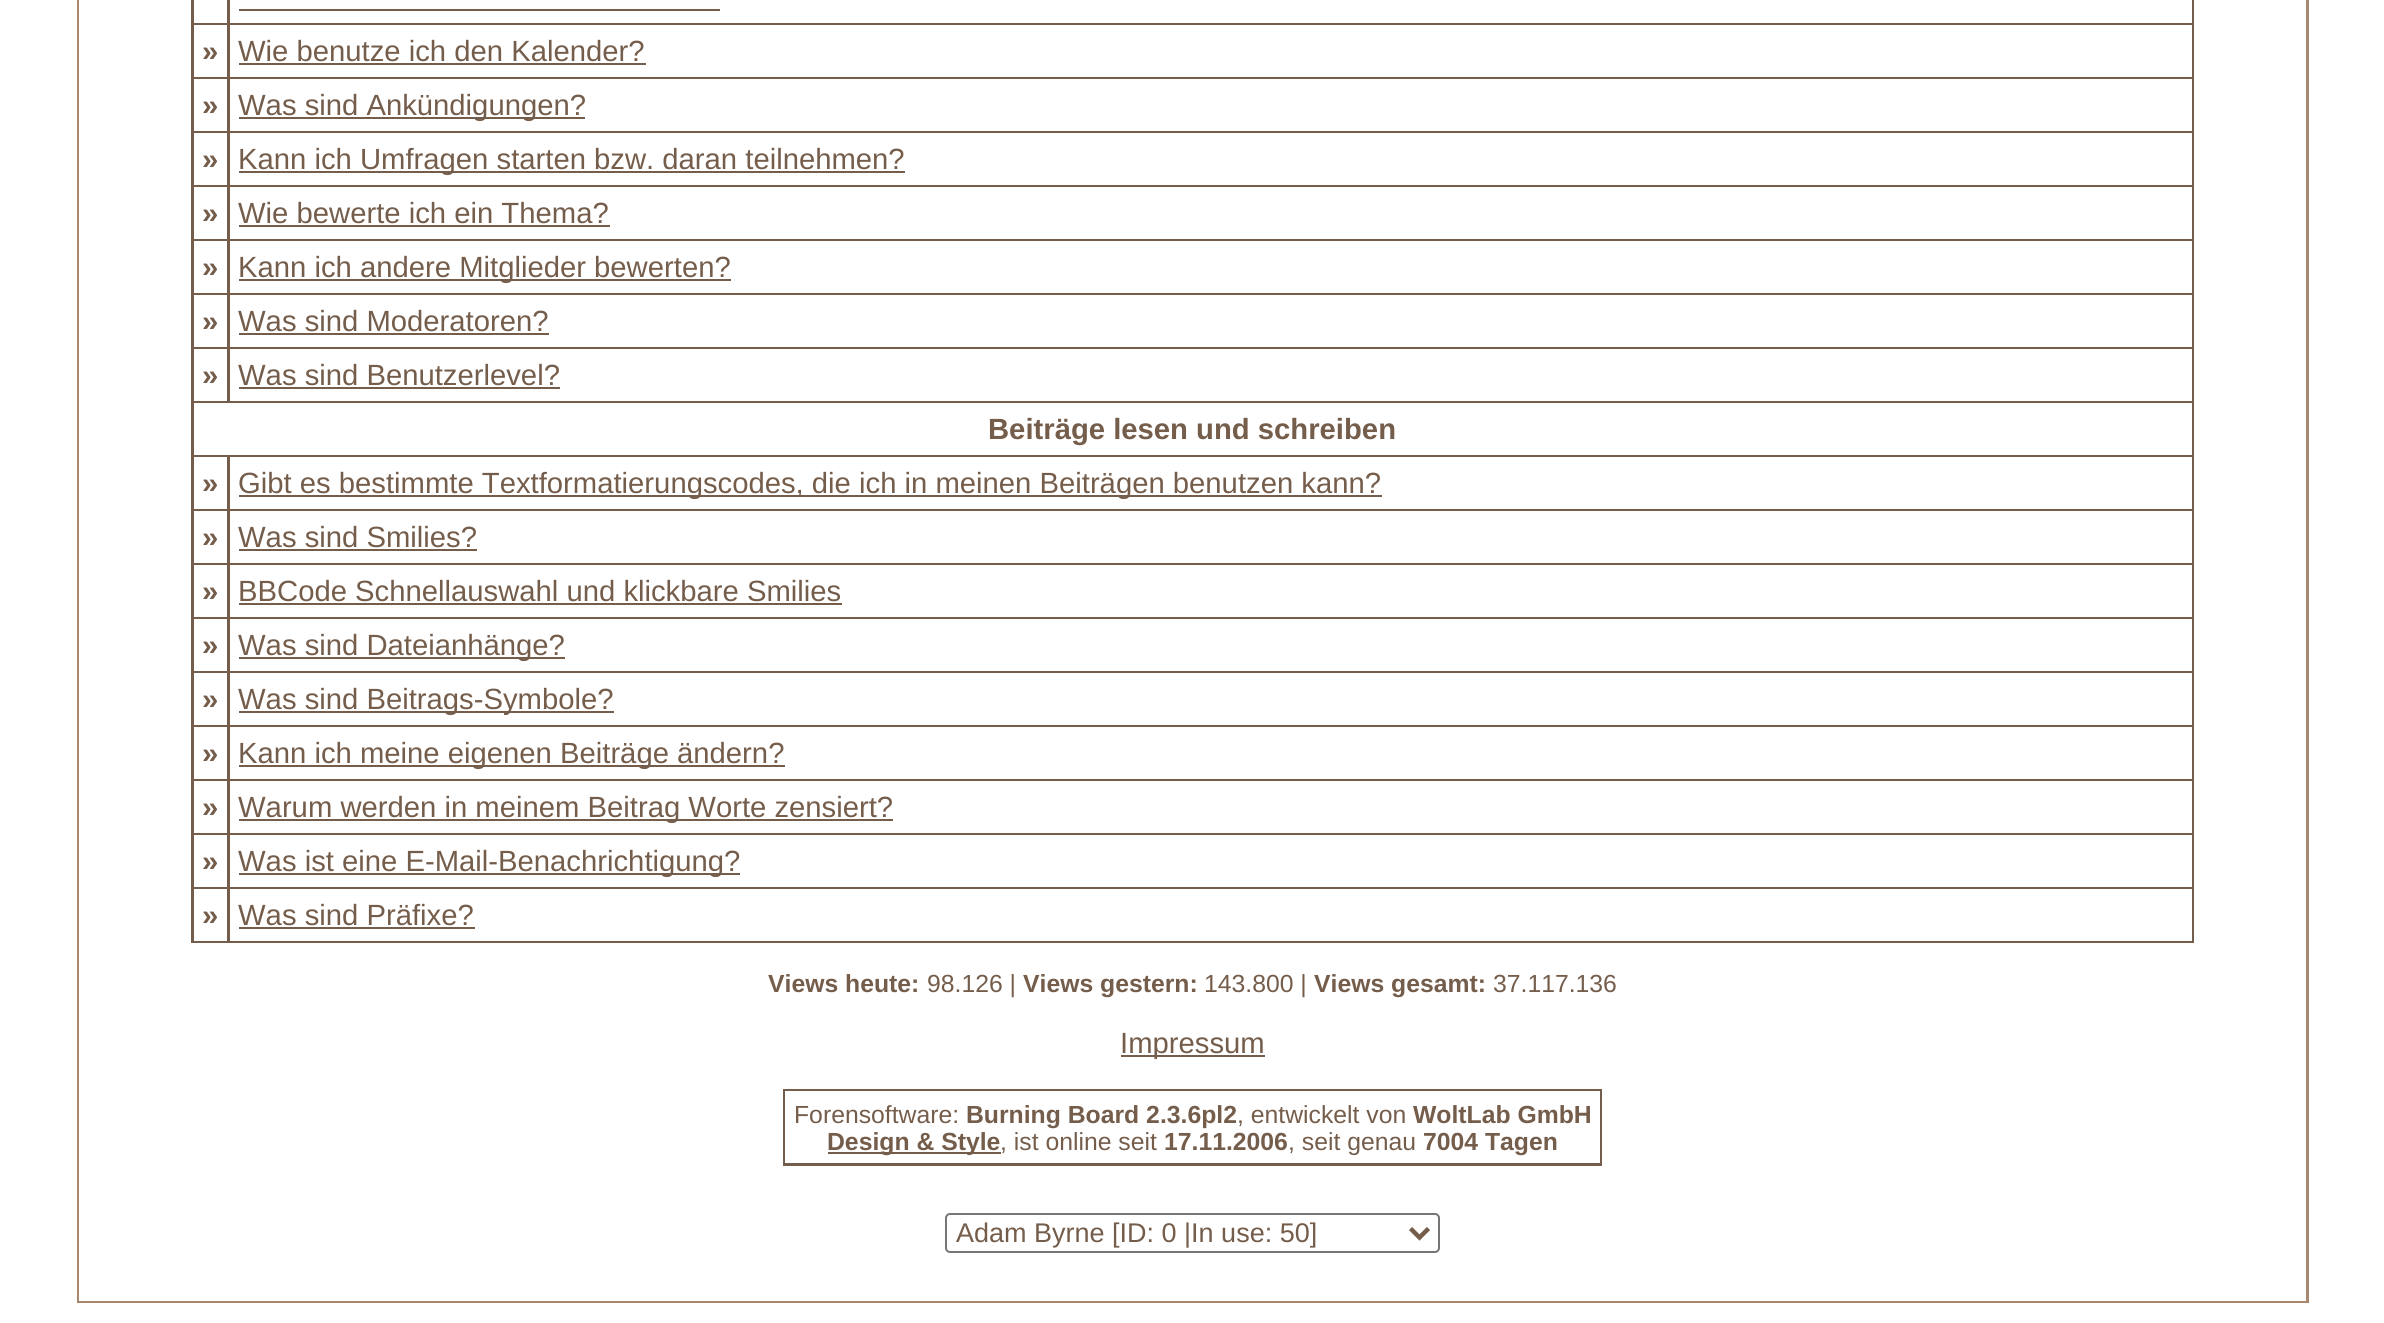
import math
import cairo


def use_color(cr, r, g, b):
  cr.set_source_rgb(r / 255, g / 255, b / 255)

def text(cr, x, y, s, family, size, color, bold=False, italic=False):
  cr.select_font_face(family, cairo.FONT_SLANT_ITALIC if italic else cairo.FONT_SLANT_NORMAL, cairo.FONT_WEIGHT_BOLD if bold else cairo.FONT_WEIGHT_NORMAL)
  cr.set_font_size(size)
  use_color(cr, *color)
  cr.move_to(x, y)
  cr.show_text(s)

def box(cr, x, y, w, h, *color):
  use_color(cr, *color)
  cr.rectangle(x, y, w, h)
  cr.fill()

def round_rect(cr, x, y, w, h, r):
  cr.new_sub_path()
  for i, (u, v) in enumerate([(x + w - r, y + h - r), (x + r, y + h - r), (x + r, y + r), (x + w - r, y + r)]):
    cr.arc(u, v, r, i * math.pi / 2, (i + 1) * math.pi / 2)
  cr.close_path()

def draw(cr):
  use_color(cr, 255, 255, 255)
  cr.paint()
  box(cr, 77, 0, 2232, 1303, 168, 135, 111)
  box(cr, 79, 0, 2227, 1301, 255, 255, 255)
  box(cr, 191, 0, 2003, 943, 117, 93, 75)
  box(cr, 194, 0, 33, 23, 255, 255, 255)
  box(cr, 230, 0, 1962, 23, 255, 255, 255)
  box(cr, 239, 9, 481, 2, 117, 93, 75)
  box(cr, 194, 25, 33, 52, 255, 255, 255)
  box(cr, 230, 25, 1962, 52, 255, 255, 255)
  box(cr, 239, 63, 407, 2, 117, 93, 75)
  box(cr, 194, 79, 33, 52, 255, 255, 255)
  box(cr, 230, 79, 1962, 52, 255, 255, 255)
  box(cr, 239, 117, 346, 2, 117, 93, 75)
  box(cr, 194, 133, 33, 52, 255, 255, 255)
  box(cr, 230, 133, 1962, 52, 255, 255, 255)
  box(cr, 239, 171, 666, 2, 117, 93, 75)
  box(cr, 194, 187, 33, 52, 255, 255, 255)
  box(cr, 230, 187, 1962, 52, 255, 255, 255)
  box(cr, 239, 225, 371, 2, 117, 93, 75)
  box(cr, 194, 241, 33, 52, 255, 255, 255)
  box(cr, 230, 241, 1962, 52, 255, 255, 255)
  box(cr, 239, 279, 492, 2, 117, 93, 75)
  box(cr, 194, 295, 33, 52, 255, 255, 255)
  box(cr, 230, 295, 1962, 52, 255, 255, 255)
  box(cr, 239, 333, 310, 2, 117, 93, 75)
  box(cr, 194, 349, 33, 52, 255, 255, 255)
  box(cr, 230, 349, 1962, 52, 255, 255, 255)
  box(cr, 239, 387, 321, 2, 117, 93, 75)
  box(cr, 194, 403, 1998, 52, 255, 255, 255)
  box(cr, 194, 457, 33, 52, 255, 255, 255)
  box(cr, 230, 457, 1962, 52, 255, 255, 255)
  box(cr, 239, 495, 1143, 2, 117, 93, 75)
  box(cr, 194, 511, 33, 52, 255, 255, 255)
  box(cr, 230, 511, 1962, 52, 255, 255, 255)
  box(cr, 239, 549, 238, 2, 117, 93, 75)
  box(cr, 194, 565, 33, 52, 255, 255, 255)
  box(cr, 230, 565, 1962, 52, 255, 255, 255)
  box(cr, 239, 603, 603, 2, 117, 93, 75)
  box(cr, 194, 619, 33, 52, 255, 255, 255)
  box(cr, 230, 619, 1962, 52, 255, 255, 255)
  box(cr, 239, 657, 326, 2, 117, 93, 75)
  box(cr, 194, 673, 33, 52, 255, 255, 255)
  box(cr, 230, 673, 1962, 52, 255, 255, 255)
  box(cr, 239, 711, 375, 2, 117, 93, 75)
  box(cr, 194, 727, 33, 52, 255, 255, 255)
  box(cr, 230, 727, 1962, 52, 255, 255, 255)
  box(cr, 239, 765, 546, 2, 117, 93, 75)
  box(cr, 194, 781, 33, 52, 255, 255, 255)
  box(cr, 230, 781, 1962, 52, 255, 255, 255)
  box(cr, 239, 819, 654, 2, 117, 93, 75)
  box(cr, 194, 835, 33, 52, 255, 255, 255)
  box(cr, 230, 835, 1962, 52, 255, 255, 255)
  box(cr, 239, 873, 501, 2, 117, 93, 75)
  box(cr, 194, 889, 33, 52, 255, 255, 255)
  box(cr, 230, 889, 1962, 52, 255, 255, 255)
  box(cr, 239, 927, 236, 2, 117, 93, 75)
  box(cr, 1121, 1055, 144, 2, 117, 93, 75)
  box(cr, 783, 1089, 819, 77, 117, 93, 75)
  box(cr, 785, 1091, 815, 72, 255, 255, 255)
  box(cr, 828, 1152, 173, 2, 117, 93, 75)
  round_rect(cr, 946, 1214, 493, 38, 4)
  use_color(cr, 118, 118, 118)
  cr.stroke()
  cr.new_path()
  cr.move_to(1410.5, 1228.5)
  cr.line_to(1419.5, 1237.5)
  cr.line_to(1428.5, 1228.5)
  use_color(cr, 117, 93, 75)
  cr.set_line_width(4.5)
  cr.stroke()
  text(cr, 202, 61, "»", "Liberation Sans", 29.25, (117, 93, 75), bold=True)
  text(cr, 238, 61, "Wie benutze ich den Kalender?", "Liberation Sans", 29.25, (117, 93, 75))
  text(cr, 202, 115, "»", "Liberation Sans", 29.25, (117, 93, 75), bold=True)
  text(cr, 238, 115, "Was sind Ankündigungen?", "Liberation Sans", 29.25, (117, 93, 75))
  text(cr, 202, 169, "»", "Liberation Sans", 29.25, (117, 93, 75), bold=True)
  text(cr, 238, 169, "Kann ich Umfragen starten bzw. daran teilnehmen?", "Liberation Sans", 29.25, (117, 93, 75))
  text(cr, 202, 223, "»", "Liberation Sans", 29.25, (117, 93, 75), bold=True)
  text(cr, 238, 223, "Wie bewerte ich ein Thema?", "Liberation Sans", 29.25, (117, 93, 75))
  text(cr, 202, 277, "»", "Liberation Sans", 29.25, (117, 93, 75), bold=True)
  text(cr, 238, 277, "Kann ich andere Mitglieder bewerten?", "Liberation Sans", 29.25, (117, 93, 75))
  text(cr, 202, 331, "»", "Liberation Sans", 29.25, (117, 93, 75), bold=True)
  text(cr, 238, 331, "Was sind Moderatoren?", "Liberation Sans", 29.25, (117, 93, 75))
  text(cr, 202, 385, "»", "Liberation Sans", 29.25, (117, 93, 75), bold=True)
  text(cr, 238, 385, "Was sind Benutzerlevel?", "Liberation Sans", 29.25, (117, 93, 75))
  text(cr, 988, 439, "Beiträge lesen und schreiben", "Liberation Sans", 29.25, (117, 93, 75), bold=True)
  text(cr, 202, 493, "»", "Liberation Sans", 29.25, (117, 93, 75), bold=True)
  text(cr, 238, 493, "Gibt es bestimmte Textformatierungscodes, die ich in meinen Beiträgen benutzen kann?", "Liberation Sans", 29.25, (117, 93, 75))
  text(cr, 202, 547, "»", "Liberation Sans", 29.25, (117, 93, 75), bold=True)
  text(cr, 238, 547, "Was sind Smilies?", "Liberation Sans", 29.25, (117, 93, 75))
  text(cr, 202, 601, "»", "Liberation Sans", 29.25, (117, 93, 75), bold=True)
  text(cr, 238, 601, "BBCode Schnellauswahl und klickbare Smilies", "Liberation Sans", 29.25, (117, 93, 75))
  text(cr, 202, 655, "»", "Liberation Sans", 29.25, (117, 93, 75), bold=True)
  text(cr, 238, 655, "Was sind Dateianhänge?", "Liberation Sans", 29.25, (117, 93, 75))
  text(cr, 202, 709, "»", "Liberation Sans", 29.25, (117, 93, 75), bold=True)
  text(cr, 238, 709, "Was sind Beitrags-Symbole?", "Liberation Sans", 29.25, (117, 93, 75))
  text(cr, 202, 763, "»", "Liberation Sans", 29.25, (117, 93, 75), bold=True)
  text(cr, 238, 763, "Kann ich meine eigenen Beiträge ändern?", "Liberation Sans", 29.25, (117, 93, 75))
  text(cr, 202, 817, "»", "Liberation Sans", 29.25, (117, 93, 75), bold=True)
  text(cr, 238, 817, "Warum werden in meinem Beitrag Worte zensiert?", "Liberation Sans", 29.25, (117, 93, 75))
  text(cr, 202, 871, "»", "Liberation Sans", 29.25, (117, 93, 75), bold=True)
  text(cr, 238, 871, "Was ist eine E-Mail-Benachrichtigung?", "Liberation Sans", 29.25, (117, 93, 75))
  text(cr, 202, 925, "»", "Liberation Sans", 29.25, (117, 93, 75), bold=True)
  text(cr, 238, 925, "Was sind Präfixe?", "Liberation Sans", 29.25, (117, 93, 75))
  text(cr, 768, 992, "Views heute:", "Liberation Sans", 24.75, (117, 93, 75), bold=True)
  text(cr, 927, 992, "98.126 |", "Liberation Sans", 24.75, (117, 93, 75))
  text(cr, 1023, 992, "Views gestern:", "Liberation Sans", 24.75, (117, 93, 75), bold=True)
  text(cr, 1204, 992, "143.800 |", "Liberation Sans", 24.75, (117, 93, 75))
  text(cr, 1314, 992, "Views gesamt:", "Liberation Sans", 24.75, (117, 93, 75), bold=True)
  text(cr, 1493, 992, "37.117.136", "Liberation Sans", 24.75, (117, 93, 75))
  text(cr, 1120, 1053, "Impressum", "Liberation Sans", 29.25, (117, 93, 75))
  text(cr, 794, 1123, "Forensoftware:", "Liberation Sans", 24.75, (117, 93, 75))
  text(cr, 966, 1123, "Burning Board 2.3.6pl2", "Liberation Sans", 24.75, (117, 93, 75), bold=True)
  text(cr, 1237, 1123, ", entwickelt von", "Liberation Sans", 24.75, (117, 93, 75))
  text(cr, 1413, 1123, "WoltLab GmbH", "Liberation Sans", 24.75, (117, 93, 75), bold=True)
  text(cr, 827, 1150, "Design & Style", "Liberation Sans", 24.75, (117, 93, 75), bold=True)
  text(cr, 1000, 1150, ", ist online seit", "Liberation Sans", 24.75, (117, 93, 75))
  text(cr, 1164, 1150, "17.11.2006", "Liberation Sans", 24.75, (117, 93, 75), bold=True)
  text(cr, 1288, 1150, ", seit genau", "Liberation Sans", 24.75, (117, 93, 75))
  text(cr, 1423, 1150, "7004 Tagen", "Liberation Sans", 24.75, (117, 93, 75), bold=True)
  text(cr, 956, 1242, "Adam Byrne [ID: 0 |In use: 50]", "Liberation Sans", 27, (117, 93, 75))


surface = cairo.ImageSurface(cairo.FORMAT_RGB24, 2384, 1323)
cr = cairo.Context(surface)
options = cairo.FontOptions()
options.set_hint_metrics(cairo.HINT_METRICS_OFF)
options.set_hint_style(cairo.HINT_STYLE_NONE)
cr.set_font_options(options)
cr.set_miter_limit(4)
draw(cr)
surface.write_to_png("out.png")
